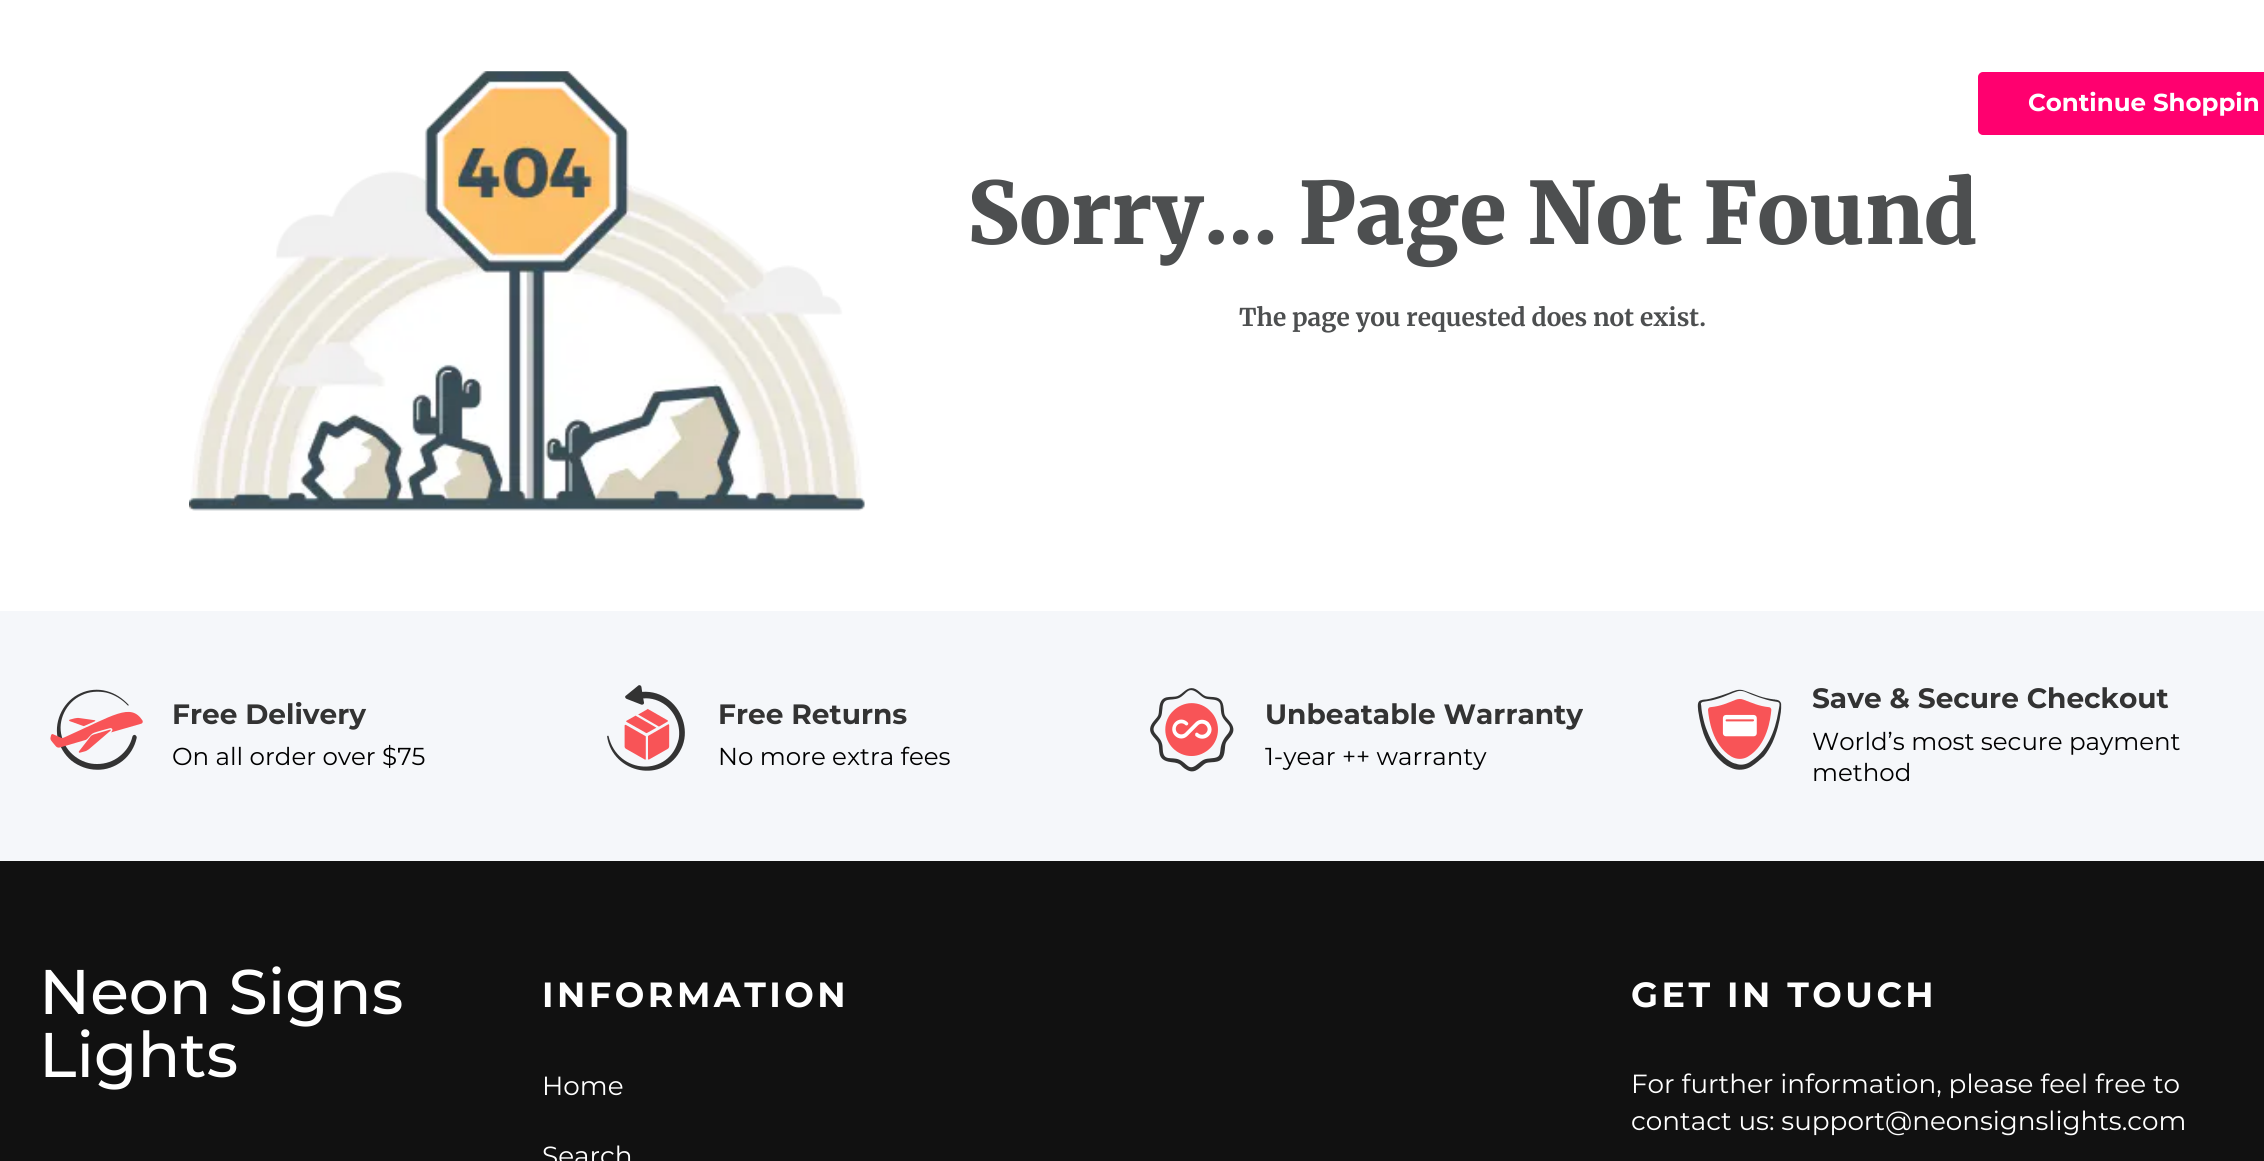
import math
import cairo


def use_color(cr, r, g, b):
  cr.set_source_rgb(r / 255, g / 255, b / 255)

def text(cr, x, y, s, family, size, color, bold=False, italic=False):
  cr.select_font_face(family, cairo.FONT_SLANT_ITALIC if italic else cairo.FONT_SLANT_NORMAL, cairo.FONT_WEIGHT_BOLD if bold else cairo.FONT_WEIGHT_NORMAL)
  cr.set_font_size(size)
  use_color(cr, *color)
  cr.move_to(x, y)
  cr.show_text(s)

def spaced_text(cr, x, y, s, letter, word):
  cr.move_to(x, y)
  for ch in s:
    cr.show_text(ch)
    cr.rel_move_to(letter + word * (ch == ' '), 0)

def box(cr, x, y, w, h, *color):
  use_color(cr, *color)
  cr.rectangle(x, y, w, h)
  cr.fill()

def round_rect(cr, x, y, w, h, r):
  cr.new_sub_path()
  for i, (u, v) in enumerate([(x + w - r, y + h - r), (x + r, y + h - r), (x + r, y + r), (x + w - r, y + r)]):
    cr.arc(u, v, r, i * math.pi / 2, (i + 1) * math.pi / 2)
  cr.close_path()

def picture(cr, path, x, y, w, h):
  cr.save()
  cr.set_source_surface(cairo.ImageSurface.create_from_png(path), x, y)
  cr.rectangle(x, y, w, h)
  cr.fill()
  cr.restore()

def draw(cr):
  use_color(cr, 255, 255, 255)
  cr.paint()
  picture(cr, "img_01.png", 189, 71, 676, 440)
  use_color(cr, 255, 0, 111)
  round_rect(cr, 1979, 73, 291, 61, 4)
  cr.fill_preserve()
  cr.stroke()
  box(cr, 0, 611, 2264, 250, 245, 247, 250)
  picture(cr, "img_02.png", 50, 689, 93, 81)
  picture(cr, "img_03.png", 607, 685, 78, 86)
  picture(cr, "img_04.png", 1150, 688, 84, 84)
  picture(cr, "img_05.png", 1697, 689, 85, 81)
  box(cr, 0, 861, 2264, 300, 17, 17, 17)
  text(cr, 2028, 111, "Continue Shoppin", "Montserrat", 24.5, (255, 255, 255), bold=True)
  text(cr, 967, 244, "Sorry... Page Not Found", "Merriweather Black", 85.75, (77, 79, 80))
  text(cr, 1239, 326, "The page you requested does not exist.", "Merriweather", 24.5, (77, 79, 80), bold=True)
  text(cr, 172, 724, "Free Delivery", "Montserrat", 28, (51, 51, 51), bold=True)
  text(cr, 172, 765, "On all order over $75", "Montserrat", 24.5, (0, 0, 0))
  text(cr, 718, 724, "Free Returns", "Montserrat", 28, (51, 51, 51), bold=True)
  text(cr, 718, 765, "No more extra fees", "Montserrat", 24.5, (0, 0, 0))
  text(cr, 1265, 724, "Unbeatable Warranty", "Montserrat", 28, (51, 51, 51), bold=True)
  text(cr, 1265, 765, "1-year ++ warranty", "Montserrat", 24.5, (0, 0, 0))
  text(cr, 1812, 708, "Save & Secure Checkout", "Montserrat", 28, (51, 51, 51), bold=True)
  text(cr, 1812, 750, "World’s most secure payment", "Montserrat", 24.5, (0, 0, 0))
  text(cr, 1812, 781, "method", "Montserrat", 24.5, (0, 0, 0))
  text(cr, 39, 1014, "Neon Signs", "Montserrat Medium", 63, (255, 255, 255))
  text(cr, 39, 1077, "Lights", "Montserrat Medium", 63, (255, 255, 255))
  cr.select_font_face("Montserrat", cairo.FONT_SLANT_NORMAL, cairo.FONT_WEIGHT_BOLD)
  cr.set_font_size(35)
  spaced_text(cr, 542, 1007, "INFORMATION", 3.5, 0)
  text(cr, 542, 1095, "Home", "Montserrat", 26.25, (255, 255, 255))
  text(cr, 542, 1165, "Search", "Montserrat", 26.25, (255, 255, 255))
  cr.select_font_face("Montserrat", cairo.FONT_SLANT_NORMAL, cairo.FONT_WEIGHT_BOLD)
  cr.set_font_size(35)
  spaced_text(cr, 1631, 1007, "GET IN TOUCH", 3.5, 0)
  text(cr, 1631, 1093, "For further information, please feel free to", "Montserrat", 26.25, (255, 255, 255))
  text(cr, 1631, 1130, "contact us: support@neonsignslights.com", "Montserrat", 26.25, (255, 255, 255))


surface = cairo.ImageSurface(cairo.FORMAT_RGB24, 2264, 1161)
cr = cairo.Context(surface)
options = cairo.FontOptions()
options.set_hint_metrics(cairo.HINT_METRICS_OFF)
options.set_hint_style(cairo.HINT_STYLE_NONE)
cr.set_font_options(options)
cr.set_miter_limit(4)
draw(cr)
surface.write_to_png("out.png")
